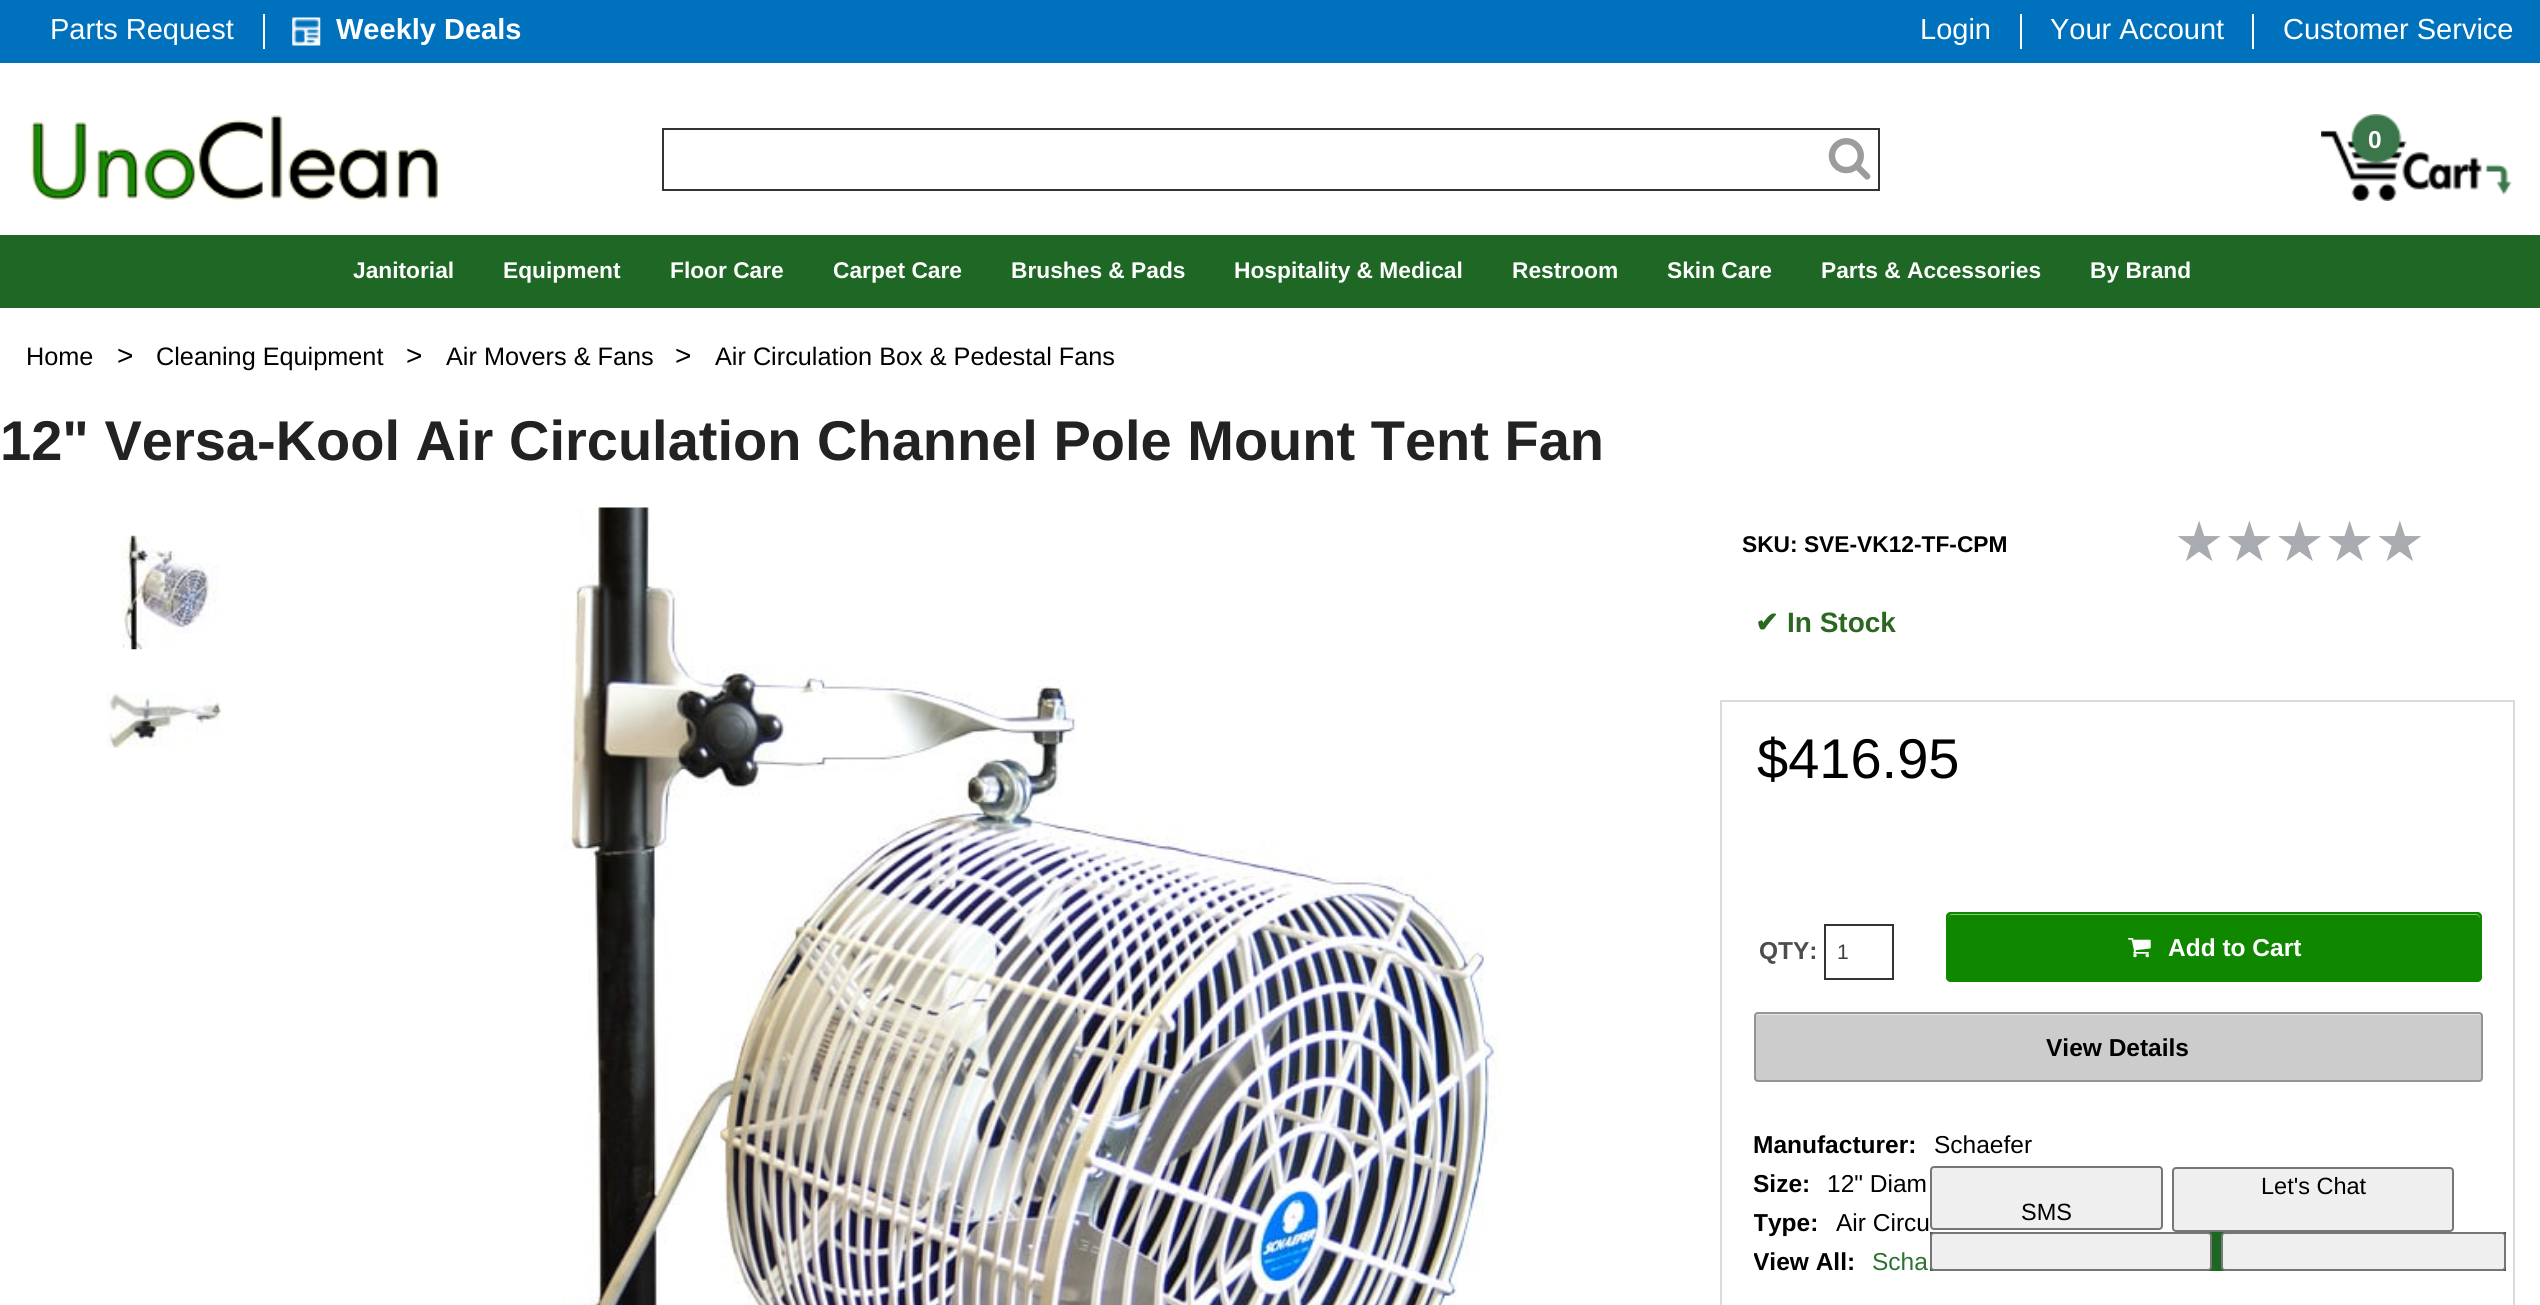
import math
import cairo


def use_color(cr, r, g, b):
  cr.set_source_rgb(r / 255, g / 255, b / 255)

def text(cr, x, y, s, family, size, color, bold=False, italic=False):
  cr.select_font_face(family, cairo.FONT_SLANT_ITALIC if italic else cairo.FONT_SLANT_NORMAL, cairo.FONT_WEIGHT_BOLD if bold else cairo.FONT_WEIGHT_NORMAL)
  cr.set_font_size(size)
  use_color(cr, *color)
  cr.move_to(x, y)
  cr.show_text(s)

def box(cr, x, y, w, h, *color):
  use_color(cr, *color)
  cr.rectangle(x, y, w, h)
  cr.fill()

def round_rect(cr, x, y, w, h, r):
  cr.new_sub_path()
  for i, (u, v) in enumerate([(x + w - r, y + h - r), (x + r, y + h - r), (x + r, y + r), (x + w - r, y + r)]):
    cr.arc(u, v, r, i * math.pi / 2, (i + 1) * math.pi / 2)
  cr.close_path()

def picture(cr, path, x, y, w, h):
  cr.save()
  cr.set_source_surface(cairo.ImageSurface.create_from_png(path), x, y)
  cr.rectangle(x, y, w, h)
  cr.fill()
  cr.restore()

def draw(cr):
  use_color(cr, 255, 255, 255)
  cr.paint()
  box(cr, 0, 0, 2540, 63, 0, 113, 189)
  box(cr, 263, 14, 2, 35, 255, 255, 255)
  picture(cr, "img_01.png", 292, 17, 29, 29)
  box(cr, 2020, 14, 2, 35, 255, 255, 255)
  box(cr, 2252, 14, 2, 35, 255, 255, 255)
  picture(cr, "img_02.png", 29, 114, 412, 89)
  cr.rectangle(663, 129, 1216, 61)
  use_color(cr, 51, 51, 51)
  cr.stroke()
  picture(cr, "img_03.png", 1828, 138, 43, 42)
  picture(cr, "img_04.png", 2321, 114, 191, 87)
  box(cr, 0, 235, 2540, 73, 30, 103, 36)
  picture(cr, "img_05.png", 120, 535, 99, 115)
  picture(cr, "img_06.png", 107, 692, 114, 56)
  picture(cr, "img_07.png", 562, 507, 940, 798)
  box(cr, 1720, 700, 795, 2, 219, 219, 219)
  box(cr, 2513, 700, 2, 605, 219, 219, 219)
  box(cr, 1720, 700, 2, 605, 219, 219, 219)
  cr.rectangle(1825, 925, 68, 54)
  use_color(cr, 51, 51, 51)
  cr.stroke()
  use_color(cr, 15, 136, 0)
  round_rect(cr, 1946, 912, 536, 70, 5)
  cr.fill()
  use_color(cr, 135, 196, 128)
  cr.new_path()
  cr.move_to(1951, 915)
  cr.line_to(2476, 915)
  cr.curve_to(2478, 915, 2480, 917, 2480, 919)
  cr.line_to(2480, 918)
  cr.curve_to(2480, 916, 2478, 914, 2476, 914)
  cr.line_to(1952, 914)
  cr.curve_to(1950, 914, 1948, 916, 1948, 918)
  cr.line_to(1948, 919)
  cr.curve_to(1948, 917, 1949, 915, 1951, 915)
  cr.close_path()
  cr.fill()
  round_rect(cr, 1947, 913, 534, 68, 4)
  use_color(cr, 15, 136, 0)
  cr.stroke()
  picture(cr, "img_08.png", 2128, 938, 23, 20)
  use_color(cr, 204, 204, 204)
  round_rect(cr, 1754, 1012, 729, 70, 4)
  cr.fill()
  use_color(cr, 230, 230, 230)
  cr.new_path()
  cr.move_to(1757, 1015)
  cr.line_to(2480, 1015)
  cr.curve_to(2481, 1015, 2482, 1016, 2482, 1017)
  cr.line_to(2482, 1014)
  cr.line_to(2480, 1013)
  cr.line_to(1756, 1013)
  cr.curve_to(1755, 1014, 1755, 1016, 1755, 1017)
  cr.curve_to(1755, 1016, 1756, 1015, 1757, 1015)
  cr.close_path()
  cr.fill()
  round_rect(cr, 1755, 1013, 727, 68, 3)
  use_color(cr, 152, 148, 148)
  cr.stroke()
  use_color(cr, 239, 239, 239)
  round_rect(cr, 2173, 1168, 280, 63, 3)
  cr.fill_preserve()
  use_color(cr, 118, 118, 118)
  cr.stroke()
  use_color(cr, 239, 239, 239)
  round_rect(cr, 1931, 1167, 231, 62, 3)
  cr.fill_preserve()
  use_color(cr, 118, 118, 118)
  cr.stroke()
  box(cr, 1930, 1232, 576, 39, 29, 103, 36)
  use_color(cr, 239, 239, 239)
  round_rect(cr, 1931, 1233, 280, 37, 3)
  cr.fill_preserve()
  use_color(cr, 118, 118, 118)
  cr.stroke()
  use_color(cr, 239, 239, 239)
  round_rect(cr, 2222, 1233, 283, 37, 3)
  cr.fill_preserve()
  use_color(cr, 118, 118, 118)
  cr.stroke()
  text(cr, 50, 39, "Parts Request", "Liberation Sans", 29, (255, 255, 255))
  text(cr, 336, 39, "Weekly Deals", "Liberation Sans", 29, (255, 255, 255), bold=True)
  text(cr, 1920, 39, "Login", "Liberation Sans", 29, (255, 255, 255))
  text(cr, 2050, 39, "Your Account", "Liberation Sans", 29, (255, 255, 255))
  text(cr, 2283, 39, "Customer Service", "Liberation Sans", 29, (255, 255, 255))
  text(cr, 2368, 148, "0", "Liberation Sans", 24.5, (255, 255, 255), bold=True)
  text(cr, 353, 278, "Janitorial", "Liberation Sans", 22.75, (255, 255, 255), bold=True)
  text(cr, 503, 278, "Equipment", "Liberation Sans", 22.75, (255, 255, 255), bold=True)
  text(cr, 670, 278, "Floor Care", "Liberation Sans", 22.75, (255, 255, 255), bold=True)
  text(cr, 833, 278, "Carpet Care", "Liberation Sans", 22.75, (255, 255, 255), bold=True)
  text(cr, 1011, 278, "Brushes & Pads", "Liberation Sans", 22.75, (255, 255, 255), bold=True)
  text(cr, 1234, 278, "Hospitality & Medical", "Liberation Sans", 22.75, (255, 255, 255), bold=True)
  text(cr, 1512, 278, "Restroom", "Liberation Sans", 22.75, (255, 255, 255), bold=True)
  text(cr, 1667, 278, "Skin Care", "Liberation Sans", 22.75, (255, 255, 255), bold=True)
  text(cr, 1821, 278, "Parts & Accessories", "Liberation Sans", 22.75, (255, 255, 255), bold=True)
  text(cr, 2090, 278, "By Brand", "Liberation Sans", 22.75, (255, 255, 255), bold=True)
  text(cr, 26, 365, "Home", "Liberation Sans", 25.25, (0, 0, 0))
  text(cr, 117, 365, ">", "Liberation Sans", 28, (0, 0, 0))
  text(cr, 156, 365, "Cleaning Equipment", "Liberation Sans", 25.25, (0, 0, 0))
  text(cr, 406, 365, ">", "Liberation Sans", 28, (0, 0, 0))
  text(cr, 446, 365, "Air Movers & Fans", "Liberation Sans", 25.25, (0, 0, 0))
  text(cr, 675, 365, ">", "Liberation Sans", 28, (0, 0, 0))
  text(cr, 715, 365, "Air Circulation Box & Pedestal Fans", "Liberation Sans", 25.25, (0, 0, 0))
  text(cr, 0, 460, "12\" Versa-Kool Air Circulation Channel Pole Mount Tent Fan", "Liberation Sans", 56, (34, 34, 34), bold=True)
  text(cr, 1742, 552, "SKU: SVE-VK12-TF-CPM", "Liberation Sans", 22.75, (0, 0, 0), bold=True)
  text(cr, 2174, 561, "★★★★★", "DejaVu Sans", 56, (168, 171, 175))
  text(cr, 1755, 632, "✔", "DejaVu Sans", 28, (42, 103, 31), bold=True)
  text(cr, 1787, 632, "In Stock", "Liberation Sans", 28, (42, 103, 31), bold=True)
  text(cr, 1757, 778, "$416.95", "Liberation Sans", 56, (0, 0, 0))
  text(cr, 1759, 959, "QTY:", "Liberation Sans", 24.5, (77, 77, 77), bold=True)
  text(cr, 1837, 959, "1", "Liberation Sans", 21, (64, 64, 64))
  text(cr, 2168, 956, "Add to Cart", "Liberation Sans", 24.5, (255, 255, 255), bold=True)
  text(cr, 2046, 1056, "View Details", "Liberation Sans", 24.5, (0, 0, 0), bold=True)
  text(cr, 1753, 1153, "Manufacturer:", "Liberation Sans", 24.5, (0, 0, 0), bold=True)
  text(cr, 1934, 1153, "Schaefer", "Liberation Sans", 24.5, (0, 0, 0))
  text(cr, 1753, 1192, "Size:", "Liberation Sans", 24.5, (0, 0, 0), bold=True)
  text(cr, 1827, 1192, "12\" Diam", "Liberation Sans", 24.5, (0, 0, 0))
  cr.save()
  cr.rectangle(1754, 1202, 729, 41)
  cr.clip()
  text(cr, 1753, 1231, "Type:", "Liberation Sans", 24.5, (0, 0, 0), bold=True)
  cr.restore()
  text(cr, 1836, 1231, "Air Circu", "Liberation Sans", 24.5, (0, 0, 0))
  cr.save()
  cr.rectangle(1754, 1243, 729, 38)
  cr.clip()
  text(cr, 1753, 1270, "View All:", "Liberation Sans", 24.5, (0, 0, 0), bold=True)
  cr.restore()
  text(cr, 1872, 1270, "Scha", "Liberation Sans", 24.5, (44, 115, 49))
  text(cr, 2261, 1194, "Let's Chat", "Liberation Sans", 23.5, (0, 0, 0))
  text(cr, 2021, 1220, "SMS", "Liberation Sans", 23.5, (0, 0, 0))


surface = cairo.ImageSurface(cairo.FORMAT_RGB24, 2540, 1305)
cr = cairo.Context(surface)
options = cairo.FontOptions()
options.set_hint_metrics(cairo.HINT_METRICS_OFF)
options.set_hint_style(cairo.HINT_STYLE_NONE)
cr.set_font_options(options)
cr.set_miter_limit(4)
draw(cr)
surface.write_to_png("out.png")
